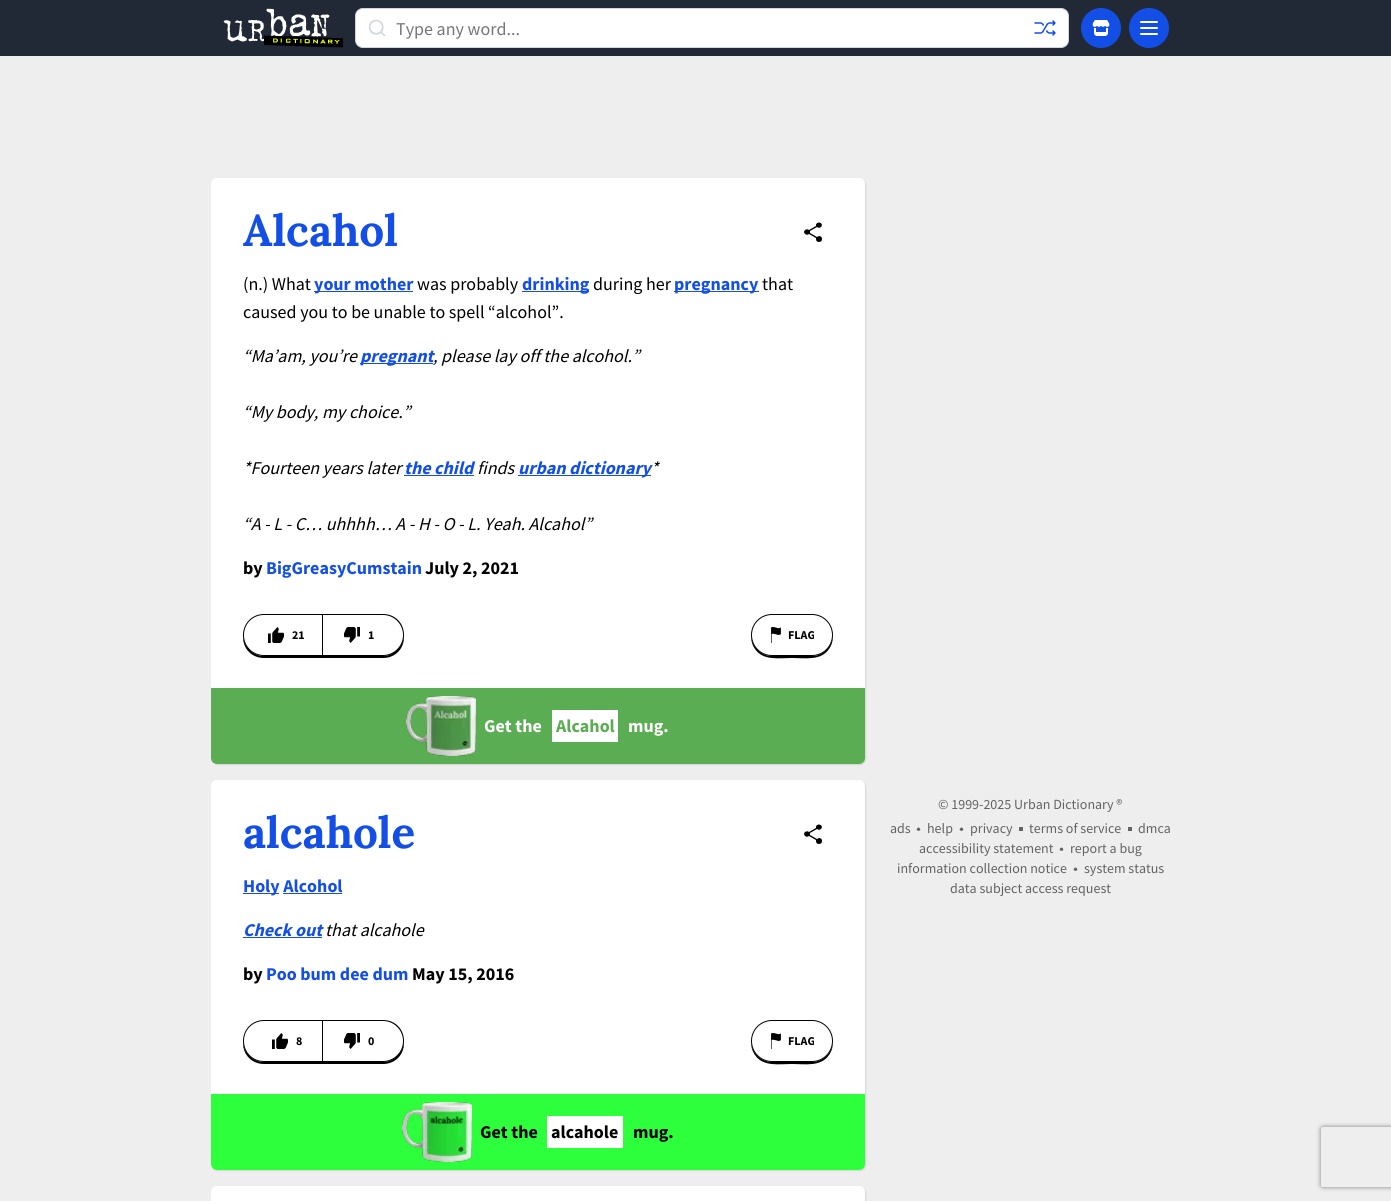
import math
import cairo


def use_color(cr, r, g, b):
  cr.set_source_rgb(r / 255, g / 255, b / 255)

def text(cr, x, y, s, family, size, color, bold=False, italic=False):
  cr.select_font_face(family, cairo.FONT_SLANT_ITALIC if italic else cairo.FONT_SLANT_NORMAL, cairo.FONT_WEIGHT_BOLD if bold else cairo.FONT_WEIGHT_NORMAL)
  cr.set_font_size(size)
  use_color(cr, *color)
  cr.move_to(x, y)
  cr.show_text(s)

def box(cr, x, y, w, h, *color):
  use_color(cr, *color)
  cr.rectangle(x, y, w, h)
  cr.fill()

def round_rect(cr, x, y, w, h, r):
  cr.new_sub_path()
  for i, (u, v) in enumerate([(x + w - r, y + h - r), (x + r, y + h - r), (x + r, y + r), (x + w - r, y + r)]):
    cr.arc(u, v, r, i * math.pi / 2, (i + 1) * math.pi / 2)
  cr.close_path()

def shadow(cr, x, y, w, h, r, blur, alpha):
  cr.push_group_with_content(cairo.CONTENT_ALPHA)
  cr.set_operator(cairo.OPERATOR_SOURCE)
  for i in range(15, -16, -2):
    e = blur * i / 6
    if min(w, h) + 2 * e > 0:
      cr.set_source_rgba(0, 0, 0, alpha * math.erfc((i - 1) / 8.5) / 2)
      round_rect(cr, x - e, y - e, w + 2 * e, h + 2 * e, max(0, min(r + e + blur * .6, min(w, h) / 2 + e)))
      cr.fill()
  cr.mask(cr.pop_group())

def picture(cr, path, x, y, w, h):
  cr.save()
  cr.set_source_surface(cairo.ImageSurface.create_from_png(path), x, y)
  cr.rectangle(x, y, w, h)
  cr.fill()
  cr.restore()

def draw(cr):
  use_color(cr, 238, 238, 238)
  cr.paint()
  box(cr, 0, 0, 1391, 56, 33, 41, 54)
  picture(cr, "img_01.png", 223, 8, 120, 40)
  use_color(cr, 255, 255, 255)
  round_rect(cr, 355.5, 8.5, 713, 39, 7.5)
  cr.fill_preserve()
  use_color(cr, 209, 213, 219)
  cr.set_line_width(1)
  cr.stroke()
  picture(cr, "img_02.png", 368, 19, 18, 18)
  picture(cr, "img_03.png", 1034, 20, 22, 16)
  use_color(cr, 19, 79, 230)
  cr.arc(1101, 28, 20, 0, 2 * math.pi)
  cr.fill()
  picture(cr, "img_04.png", 1092, 20, 18, 16)
  cr.arc(1149, 28, 20, 0, 2 * math.pi)
  cr.fill()
  cr.new_path()
  cr.move_to(1141, 22)
  cr.line_to(1157, 22)
  cr.move_to(1141, 28)
  cr.line_to(1157, 28)
  cr.move_to(1141, 34)
  cr.line_to(1157, 34)
  use_color(cr, 255, 255, 255)
  cr.set_line_width(2)
  cr.set_line_cap(cairo.LINE_CAP_ROUND)
  cr.set_line_join(cairo.LINE_JOIN_ROUND)
  cr.stroke()
  use_color(cr, 0, 0, 0)
  shadow(cr, 212, 179, 654, 586, 6, 0.5, 0.1)
  use_color(cr, 255, 255, 255)
  round_rect(cr, 211, 178, 654, 586, 6)
  cr.fill()
  picture(cr, "img_05.png", 804, 222, 18, 20)
  box(cr, 314, 291, 99, 1, 19, 79, 230)
  box(cr, 522, 291, 67, 1, 19, 79, 230)
  box(cr, 674, 291, 85, 1, 19, 79, 230)
  box(cr, 360, 363, 73, 1, 19, 79, 230)
  box(cr, 404, 475, 70, 1, 19, 79, 230)
  box(cr, 518, 475, 133, 1, 19, 79, 230)
  use_color(cr, 0, 0, 0)
  cr.new_path()
  cr.move_to(243, 636)
  cr.line_to(243, 637)
  cr.curve_to(243, 649, 252, 658, 264, 658)
  cr.line_to(323, 658)
  cr.line_to(323, 656)
  cr.line_to(264, 656)
  cr.curve_to(253, 656, 244, 647, 243, 636)
  cr.close_path()
  cr.fill()
  cr.new_path()
  cr.move_to(264, 614.5)
  cr.line_to(322.5, 614.5)
  cr.line_to(322.5, 655.5)
  cr.line_to(264, 655.5)
  cr.curve_to(252.5, 655.5, 243.5, 646.5, 243.5, 635)
  cr.curve_to(243.5, 623.5, 252.5, 614.5, 264, 614.5)
  cr.close_path()
  cr.set_line_width(1)
  cr.set_line_cap(cairo.LINE_CAP_BUTT)
  cr.set_line_join(cairo.LINE_JOIN_MITER)
  cr.stroke()
  picture(cr, "img_06.png", 268, 627, 16, 16)
  cr.new_path()
  cr.move_to(323, 656)
  cr.line_to(323, 658)
  cr.line_to(383, 658)
  cr.curve_to(395, 658, 404, 649, 404, 637)
  cr.line_to(404, 636)
  cr.curve_to(403, 647, 394, 656, 383, 656)
  cr.close_path()
  cr.fill()
  cr.set_fill_rule(cairo.FILL_RULE_EVEN_ODD)
  cr.new_path()
  cr.move_to(323, 614)
  cr.line_to(383, 614)
  cr.curve_to(395, 614, 404, 623, 404, 635)
  cr.curve_to(404, 647, 395, 656, 383, 656)
  cr.line_to(323, 656)
  cr.close_path()
  cr.move_to(323, 615)
  cr.line_to(383, 615)
  cr.curve_to(394, 615, 403, 624, 403, 635)
  cr.curve_to(403, 646, 394, 655, 383, 655)
  cr.line_to(323, 655)
  cr.close_path()
  cr.fill()
  picture(cr, "img_07.png", 344, 627, 16, 16)
  cr.set_fill_rule(cairo.FILL_RULE_WINDING)
  cr.new_path()
  cr.move_to(751, 636)
  cr.curve_to(751, 640, 752, 645, 755, 649)
  cr.curve_to(763, 661, 779, 658, 792, 658)
  cr.curve_to(805, 658, 821, 661, 829, 649)
  cr.curve_to(832, 645, 833, 640, 833, 636)
  cr.curve_to(832, 647, 823, 656, 812, 656)
  cr.line_to(772, 656)
  cr.curve_to(761, 656, 752, 647, 751, 636)
  cr.close_path()
  cr.fill()
  round_rect(cr, 751.5, 614.5, 81, 41, 20.5)
  cr.stroke()
  picture(cr, "img_08.png", 771, 627, 10, 16)
  use_color(cr, 90, 173, 82)
  cr.new_path()
  cr.move_to(211, 688)
  cr.line_to(865, 688)
  cr.line_to(865, 758)
  cr.curve_to(865, 761.5, 862.5, 764, 859, 764)
  cr.line_to(217, 764)
  cr.curve_to(213.5, 764, 211, 761.5, 211, 758)
  cr.close_path()
  cr.fill()
  picture(cr, "img_09.png", 406, 696, 70, 60)
  box(cr, 552, 710, 66, 32, 255, 255, 255)
  use_color(cr, 0, 0, 0)
  shadow(cr, 212, 781, 654, 390, 6, 0.5, 0.1)
  use_color(cr, 255, 255, 255)
  round_rect(cr, 211, 780, 654, 390, 6)
  cr.fill()
  picture(cr, "img_05.png", 804, 824, 18, 20)
  box(cr, 243, 893, 36, 1, 19, 79, 230)
  box(cr, 283, 893, 59, 1, 19, 79, 230)
  box(cr, 243, 937, 79, 1, 19, 79, 230)
  use_color(cr, 0, 0, 0)
  cr.new_path()
  cr.move_to(243, 1042)
  cr.line_to(243, 1043)
  cr.curve_to(243, 1055, 252, 1064, 264, 1064)
  cr.line_to(323, 1064)
  cr.line_to(323, 1062)
  cr.line_to(264, 1062)
  cr.curve_to(253, 1062, 244, 1053, 243, 1042)
  cr.close_path()
  cr.fill()
  cr.new_path()
  cr.move_to(264, 1020.5)
  cr.line_to(322.5, 1020.5)
  cr.line_to(322.5, 1061.5)
  cr.line_to(264, 1061.5)
  cr.curve_to(252.5, 1061.5, 243.5, 1052.5, 243.5, 1041)
  cr.curve_to(243.5, 1029.5, 252.5, 1020.5, 264, 1020.5)
  cr.close_path()
  cr.stroke()
  picture(cr, "img_06.png", 272, 1033, 16, 16)
  cr.new_path()
  cr.move_to(323, 1062)
  cr.line_to(323, 1064)
  cr.line_to(383, 1064)
  cr.curve_to(395, 1064, 404, 1055, 404, 1043)
  cr.line_to(404, 1042)
  cr.curve_to(403, 1053, 394, 1062, 383, 1062)
  cr.close_path()
  cr.fill()
  cr.set_fill_rule(cairo.FILL_RULE_EVEN_ODD)
  cr.new_path()
  cr.move_to(323, 1020)
  cr.line_to(383, 1020)
  cr.curve_to(395, 1020, 404, 1029, 404, 1041)
  cr.curve_to(404, 1053, 395, 1062, 383, 1062)
  cr.line_to(323, 1062)
  cr.close_path()
  cr.move_to(323, 1021)
  cr.line_to(383, 1021)
  cr.curve_to(394, 1021, 403, 1030, 403, 1041)
  cr.curve_to(403, 1052, 394, 1061, 383, 1061)
  cr.line_to(323, 1061)
  cr.close_path()
  cr.fill()
  picture(cr, "img_07.png", 344, 1033, 16, 16)
  cr.set_fill_rule(cairo.FILL_RULE_WINDING)
  cr.new_path()
  cr.move_to(751, 1042)
  cr.curve_to(751, 1046, 752, 1051, 755, 1055)
  cr.curve_to(763, 1067, 779, 1064, 792, 1064)
  cr.curve_to(805, 1064, 821, 1067, 829, 1055)
  cr.curve_to(832, 1051, 833, 1046, 833, 1042)
  cr.curve_to(832, 1053, 823, 1062, 812, 1062)
  cr.line_to(772, 1062)
  cr.curve_to(761, 1062, 752, 1053, 751, 1042)
  cr.close_path()
  cr.fill()
  round_rect(cr, 751.5, 1020.5, 81, 41, 20.5)
  cr.stroke()
  picture(cr, "img_08.png", 771, 1033, 10, 16)
  use_color(cr, 46, 255, 61)
  cr.new_path()
  cr.move_to(211, 1094)
  cr.line_to(865, 1094)
  cr.line_to(865, 1164)
  cr.curve_to(865, 1167.5, 862.5, 1170, 859, 1170)
  cr.line_to(217, 1170)
  cr.curve_to(213.5, 1170, 211, 1167.5, 211, 1164)
  cr.close_path()
  cr.fill()
  picture(cr, "img_10.png", 402, 1102, 70, 60)
  box(cr, 547, 1116, 76, 32, 255, 255, 255)
  use_color(cr, 0, 0, 0)
  shadow(cr, 212, 1187, 654, 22, 6, 0.5, 0.1)
  use_color(cr, 255, 255, 255)
  round_rect(cr, 211, 1186, 654, 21, 6)
  cr.fill()
  picture(cr, "img_11.png", 916, 827, 5, 4)
  picture(cr, "img_11.png", 959, 827, 5, 4)
  box(cr, 1019, 827, 4, 4, 99, 99, 99)
  box(cr, 1128, 827, 4, 4, 99, 99, 99)
  picture(cr, "img_11.png", 1059, 847, 5, 4)
  picture(cr, "img_11.png", 1073, 867, 5, 4)
  cr.save()
  cr.set_fill_rule(cairo.FILL_RULE_EVEN_ODD)
  cr.new_path()
  cr.move_to(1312, 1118)
  cr.line_to(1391, 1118)
  cr.line_to(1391, 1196)
  cr.line_to(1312, 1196)
  cr.close_path()
  cr.move_to(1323, 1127)
  cr.line_to(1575, 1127)
  cr.curve_to(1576, 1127, 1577, 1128, 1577, 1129)
  cr.line_to(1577, 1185)
  cr.curve_to(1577, 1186, 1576, 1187, 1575, 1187)
  cr.line_to(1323, 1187)
  cr.curve_to(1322, 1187, 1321, 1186, 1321, 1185)
  cr.line_to(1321, 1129)
  cr.curve_to(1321, 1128, 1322, 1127, 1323, 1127)
  cr.close_path()
  cr.clip()
  use_color(cr, 128, 128, 128)
  shadow(cr, 1321, 1127, 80, 60, 2, 2.5, 1)
  cr.restore()
  text(cr, 396, 35, "Type any word...", "Source Sans Pro", 18, (118, 118, 118))
  text(cr, 243, 246, "Alcahol", "Lora", 44, (19, 79, 230), bold=True)
  text(cr, 243, 290, "(n.) What", "Source Sans Pro", 18, (0, 0, 0))
  text(cr, 314, 290, "your mother", "Source Sans Pro", 18, (19, 79, 230), bold=True)
  text(cr, 417, 290, "was probably", "Source Sans Pro", 18, (0, 0, 0))
  text(cr, 522, 290, "drinking", "Source Sans Pro", 18, (19, 79, 230), bold=True)
  text(cr, 593, 290, "during her", "Source Sans Pro", 18, (0, 0, 0))
  text(cr, 674, 290, "pregnancy", "Source Sans Pro", 18, (19, 79, 230), bold=True)
  text(cr, 762, 290, "that", "Source Sans Pro", 18, (0, 0, 0))
  text(cr, 243, 318, "caused you to be unable to spell “alcohol”.", "Source Sans Pro", 18, (0, 0, 0))
  text(cr, 243, 362, "“Ma’am, you’re", "Source Sans Pro", 18, (0, 0, 0), italic=True)
  text(cr, 360, 362, "pregnant", "Source Sans Pro", 18, (19, 79, 230), bold=True, italic=True)
  text(cr, 433, 362, ", please lay off the alcohol.”", "Source Sans Pro", 18, (0, 0, 0), italic=True)
  text(cr, 243, 418, "“My body, my choice.”", "Source Sans Pro", 18, (0, 0, 0), italic=True)
  text(cr, 243, 474, "*Fourteen years later", "Source Sans Pro", 18, (0, 0, 0), italic=True)
  text(cr, 404, 474, "the child", "Source Sans Pro", 18, (19, 79, 230), bold=True, italic=True)
  text(cr, 477, 474, "finds", "Source Sans Pro", 18, (0, 0, 0), italic=True)
  text(cr, 518, 474, "urban dictionary", "Source Sans Pro", 18, (19, 79, 230), bold=True, italic=True)
  text(cr, 651, 474, "*", "Source Sans Pro", 18, (0, 0, 0), italic=True)
  text(cr, 243, 530, "“A - L - C… uhhhh… A - H - O - L. Yeah. Alcahol”", "Source Sans Pro", 18, (0, 0, 0), italic=True)
  text(cr, 243, 574, "by", "Source Sans Pro", 18, (0, 0, 0), bold=True)
  text(cr, 266, 574, "BigGreasyCumstain", "Source Sans Pro", 18, (19, 79, 230), bold=True)
  text(cr, 425, 574, "July 2, 2021", "Source Sans Pro", 18, (0, 0, 0), bold=True)
  text(cr, 292, 639, "21", "Source Sans Pro", 12, (0, 0, 0), bold=True)
  text(cr, 368, 639, "1", "Source Sans Pro", 12, (0, 0, 0), bold=True)
  text(cr, 788, 639, "FLAG", "Source Sans Pro", 12, (0, 0, 0), bold=True)
  text(cr, 484, 732, "Get the", "Source Sans Pro", 18, (255, 255, 255), bold=True)
  text(cr, 556, 732, "Alcahol", "Source Sans Pro", 18, (90, 173, 82), bold=True)
  text(cr, 628, 732, "mug.", "Source Sans Pro", 18, (255, 255, 255), bold=True)
  text(cr, 243, 848, "alcahole", "Lora", 44, (19, 79, 230), bold=True)
  text(cr, 243, 892, "Holy Alcohol", "Source Sans Pro", 18, (19, 79, 230), bold=True)
  text(cr, 243, 936, "Check out", "Source Sans Pro", 18, (19, 79, 230), bold=True, italic=True)
  text(cr, 325, 936, "that alcahole", "Source Sans Pro", 18, (0, 0, 0), italic=True)
  text(cr, 243, 980, "by", "Source Sans Pro", 18, (0, 0, 0), bold=True)
  text(cr, 266, 980, "Poo bum dee dum", "Source Sans Pro", 18, (19, 79, 230), bold=True)
  text(cr, 412, 980, "May 15, 2016", "Source Sans Pro", 18, (0, 0, 0), bold=True)
  text(cr, 296, 1045, "8", "Source Sans Pro", 12, (0, 0, 0), bold=True)
  text(cr, 368, 1045, "0", "Source Sans Pro", 12, (0, 0, 0), bold=True)
  text(cr, 788, 1045, "FLAG", "Source Sans Pro", 12, (0, 0, 0), bold=True)
  text(cr, 480, 1138, "Get the", "Source Sans Pro", 18, (0, 0, 0), bold=True)
  text(cr, 551, 1138, "alcahole", "Source Sans Pro", 18, (0, 0, 0), bold=True)
  text(cr, 633, 1138, "mug.", "Source Sans Pro", 18, (0, 0, 0), bold=True)
  text(cr, 938, 809, "© 1999-2025 Urban Dictionary ®", "Source Sans Pro", 14, (99, 99, 99))
  text(cr, 890, 833, "ads", "Source Sans Pro", 14, (99, 99, 99))
  text(cr, 927, 833, "help", "Source Sans Pro", 14, (99, 99, 99))
  text(cr, 970, 833, "privacy", "Source Sans Pro", 14, (99, 99, 99))
  text(cr, 1029, 833, "terms of service", "Source Sans Pro", 14, (99, 99, 99))
  text(cr, 1138, 833, "dmca", "Source Sans Pro", 14, (99, 99, 99))
  text(cr, 919, 853, "accessibility statement", "Source Sans Pro", 14, (99, 99, 99))
  text(cr, 1070, 853, "report a bug", "Source Sans Pro", 14, (99, 99, 99))
  text(cr, 897, 873, "information collection notice", "Source Sans Pro", 14, (99, 99, 99))
  text(cr, 1084, 873, "system status", "Source Sans Pro", 14, (99, 99, 99))
  text(cr, 950, 893, "data subject access request", "Source Sans Pro", 14, (99, 99, 99))


surface = cairo.ImageSurface(cairo.FORMAT_RGB24, 1391, 1201)
cr = cairo.Context(surface)
options = cairo.FontOptions()
options.set_hint_metrics(cairo.HINT_METRICS_OFF)
options.set_hint_style(cairo.HINT_STYLE_NONE)
cr.set_font_options(options)
cr.set_miter_limit(4)
draw(cr)
surface.write_to_png("out.png")
